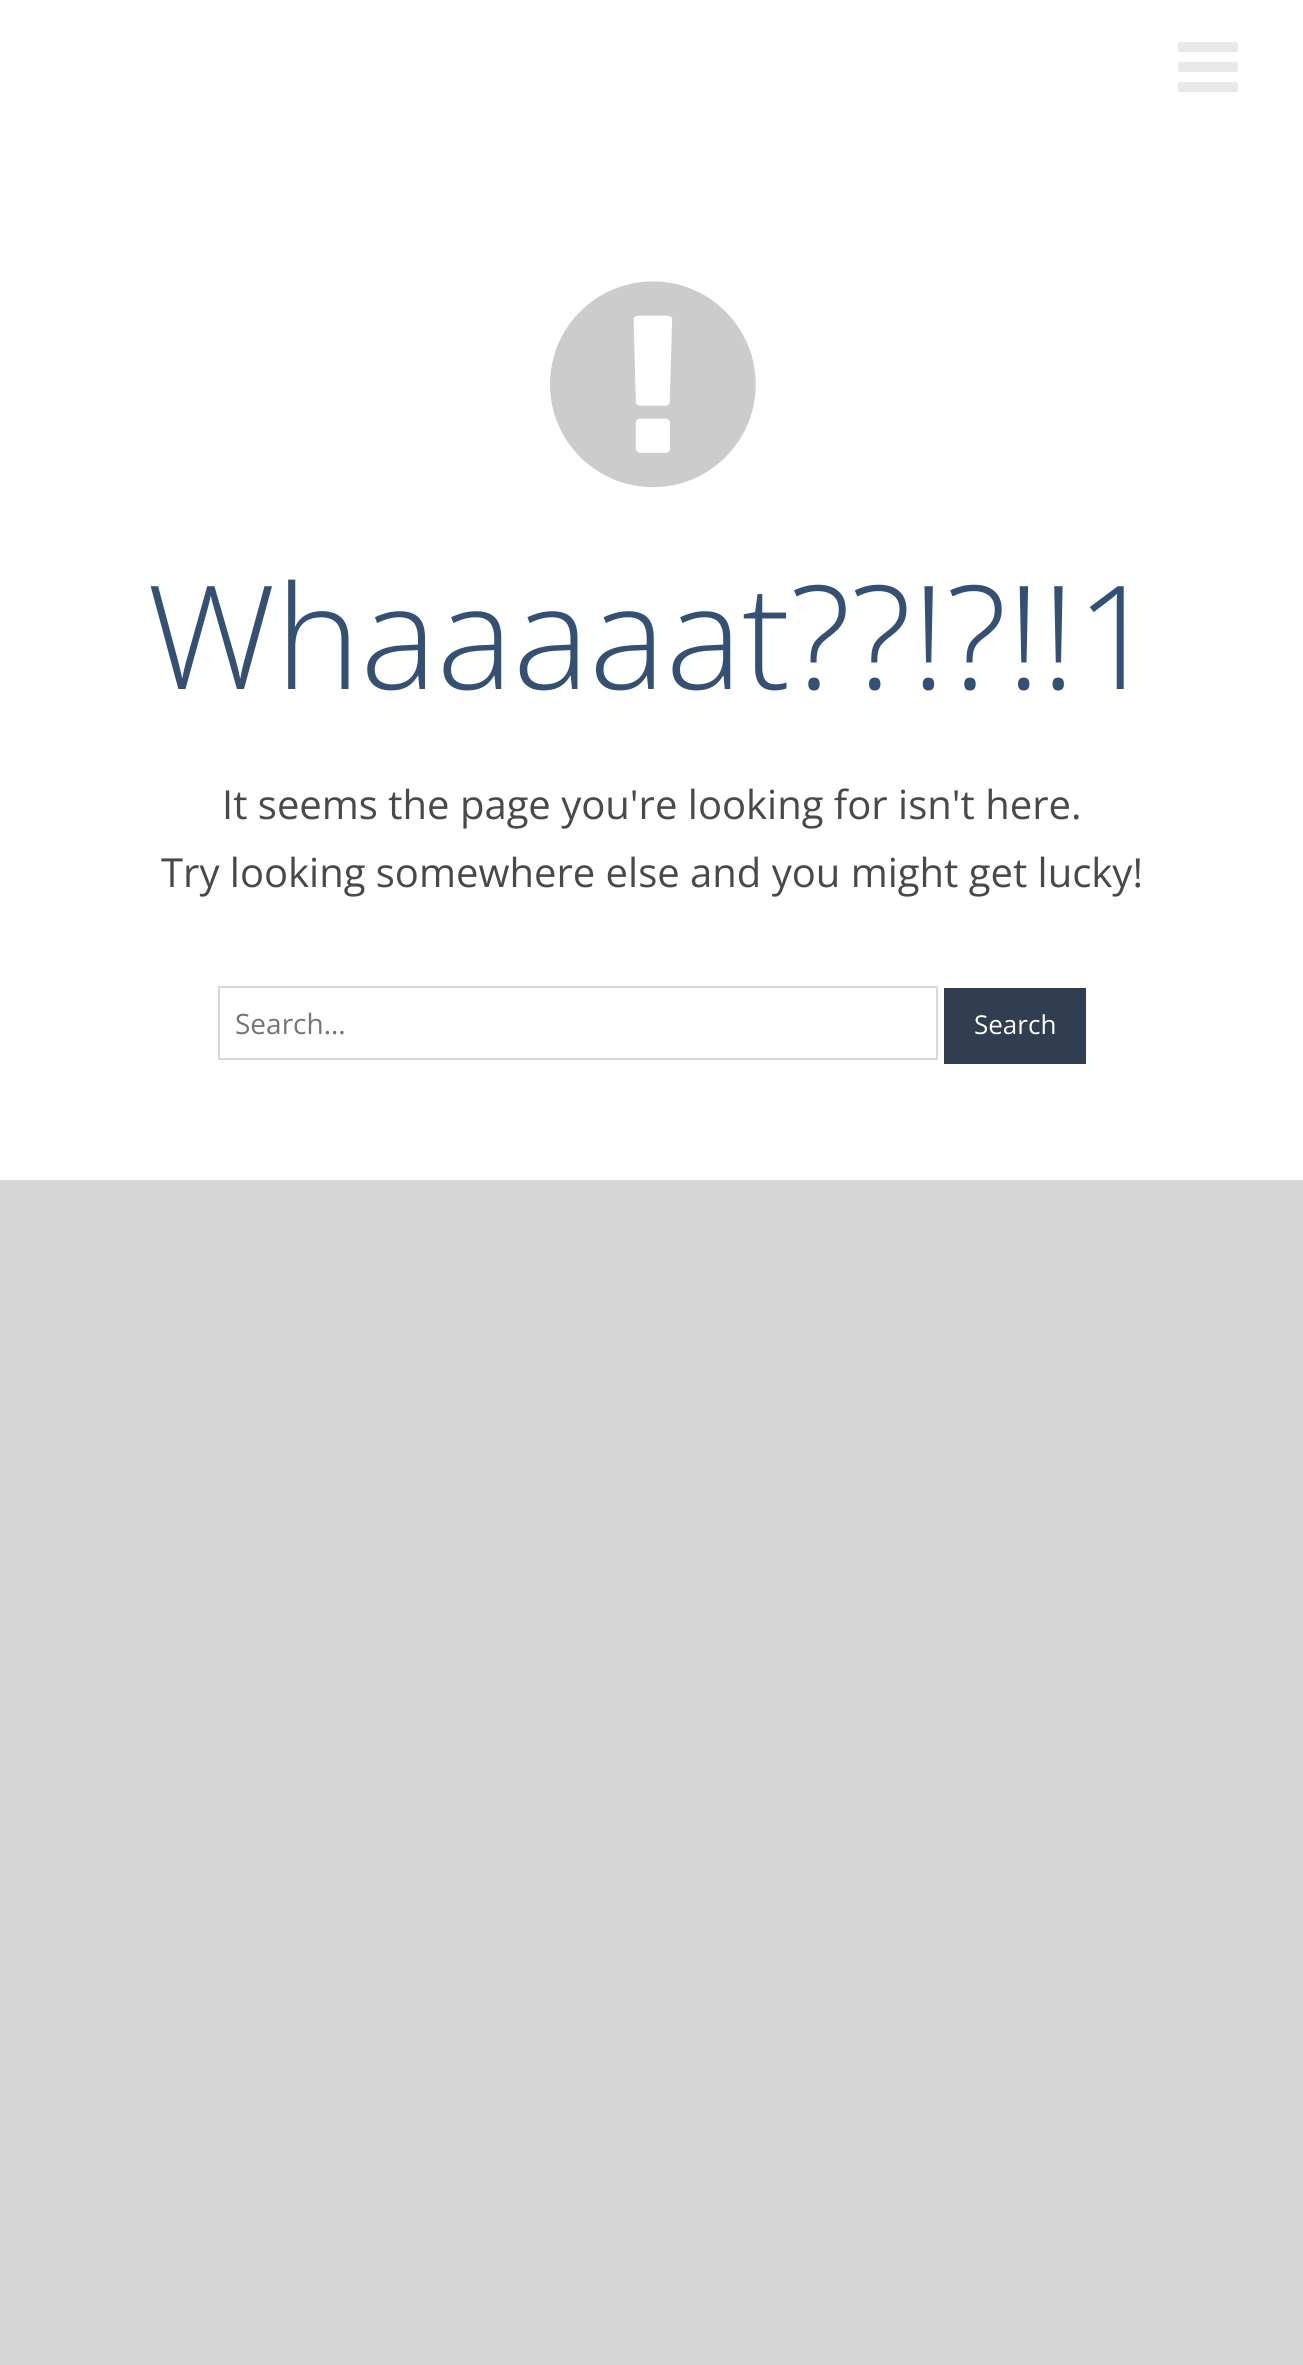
import math
import cairo


def use_color(cr, r, g, b):
  cr.set_source_rgb(r / 255, g / 255, b / 255)

def text(cr, x, y, s, family, size, color, bold=False, italic=False):
  cr.select_font_face(family, cairo.FONT_SLANT_ITALIC if italic else cairo.FONT_SLANT_NORMAL, cairo.FONT_WEIGHT_BOLD if bold else cairo.FONT_WEIGHT_NORMAL)
  cr.set_font_size(size)
  use_color(cr, *color)
  cr.move_to(x, y)
  cr.show_text(s)

def box(cr, x, y, w, h, *color):
  use_color(cr, *color)
  cr.rectangle(x, y, w, h)
  cr.fill()

def picture(cr, path, x, y, w, h):
  cr.save()
  cr.set_source_surface(cairo.ImageSurface.create_from_png(path), x, y)
  cr.rectangle(x, y, w, h)
  cr.fill()
  cr.restore()

def draw(cr):
  use_color(cr, 255, 255, 255)
  cr.paint()
  picture(cr, "img_01.png", 1178, 42, 60, 50)
  picture(cr, "img_02.png", 550, 281, 206, 207)
  cr.rectangle(219, 987, 718, 72)
  use_color(cr, 214, 218, 219)
  cr.stroke()
  box(cr, 944, 988, 142, 76, 49, 61, 80)
  box(cr, 0, 1180, 1303, 1185, 214, 214, 214)
  text(cr, 147, 689, "Whaaaaat??!?!!1", "Open Sans Light", 144, (52, 81, 115))
  text(cr, 222, 819, "It seems the page you're looking for isn't here.", "Open Sans", 40, (73, 73, 73))
  text(cr, 161, 887, "Try looking somewhere else and you might get lucky!", "Open Sans", 40, (73, 73, 73))
  text(cr, 235, 1034, "Search...", "Open Sans", 28, (117, 117, 117))
  text(cr, 974, 1034, "Search", "Open Sans", 26, (255, 255, 255))


surface = cairo.ImageSurface(cairo.FORMAT_RGB24, 1303, 2365)
cr = cairo.Context(surface)
options = cairo.FontOptions()
options.set_hint_metrics(cairo.HINT_METRICS_OFF)
options.set_hint_style(cairo.HINT_STYLE_NONE)
cr.set_font_options(options)
cr.set_miter_limit(4)
draw(cr)
surface.write_to_png("out.png")
